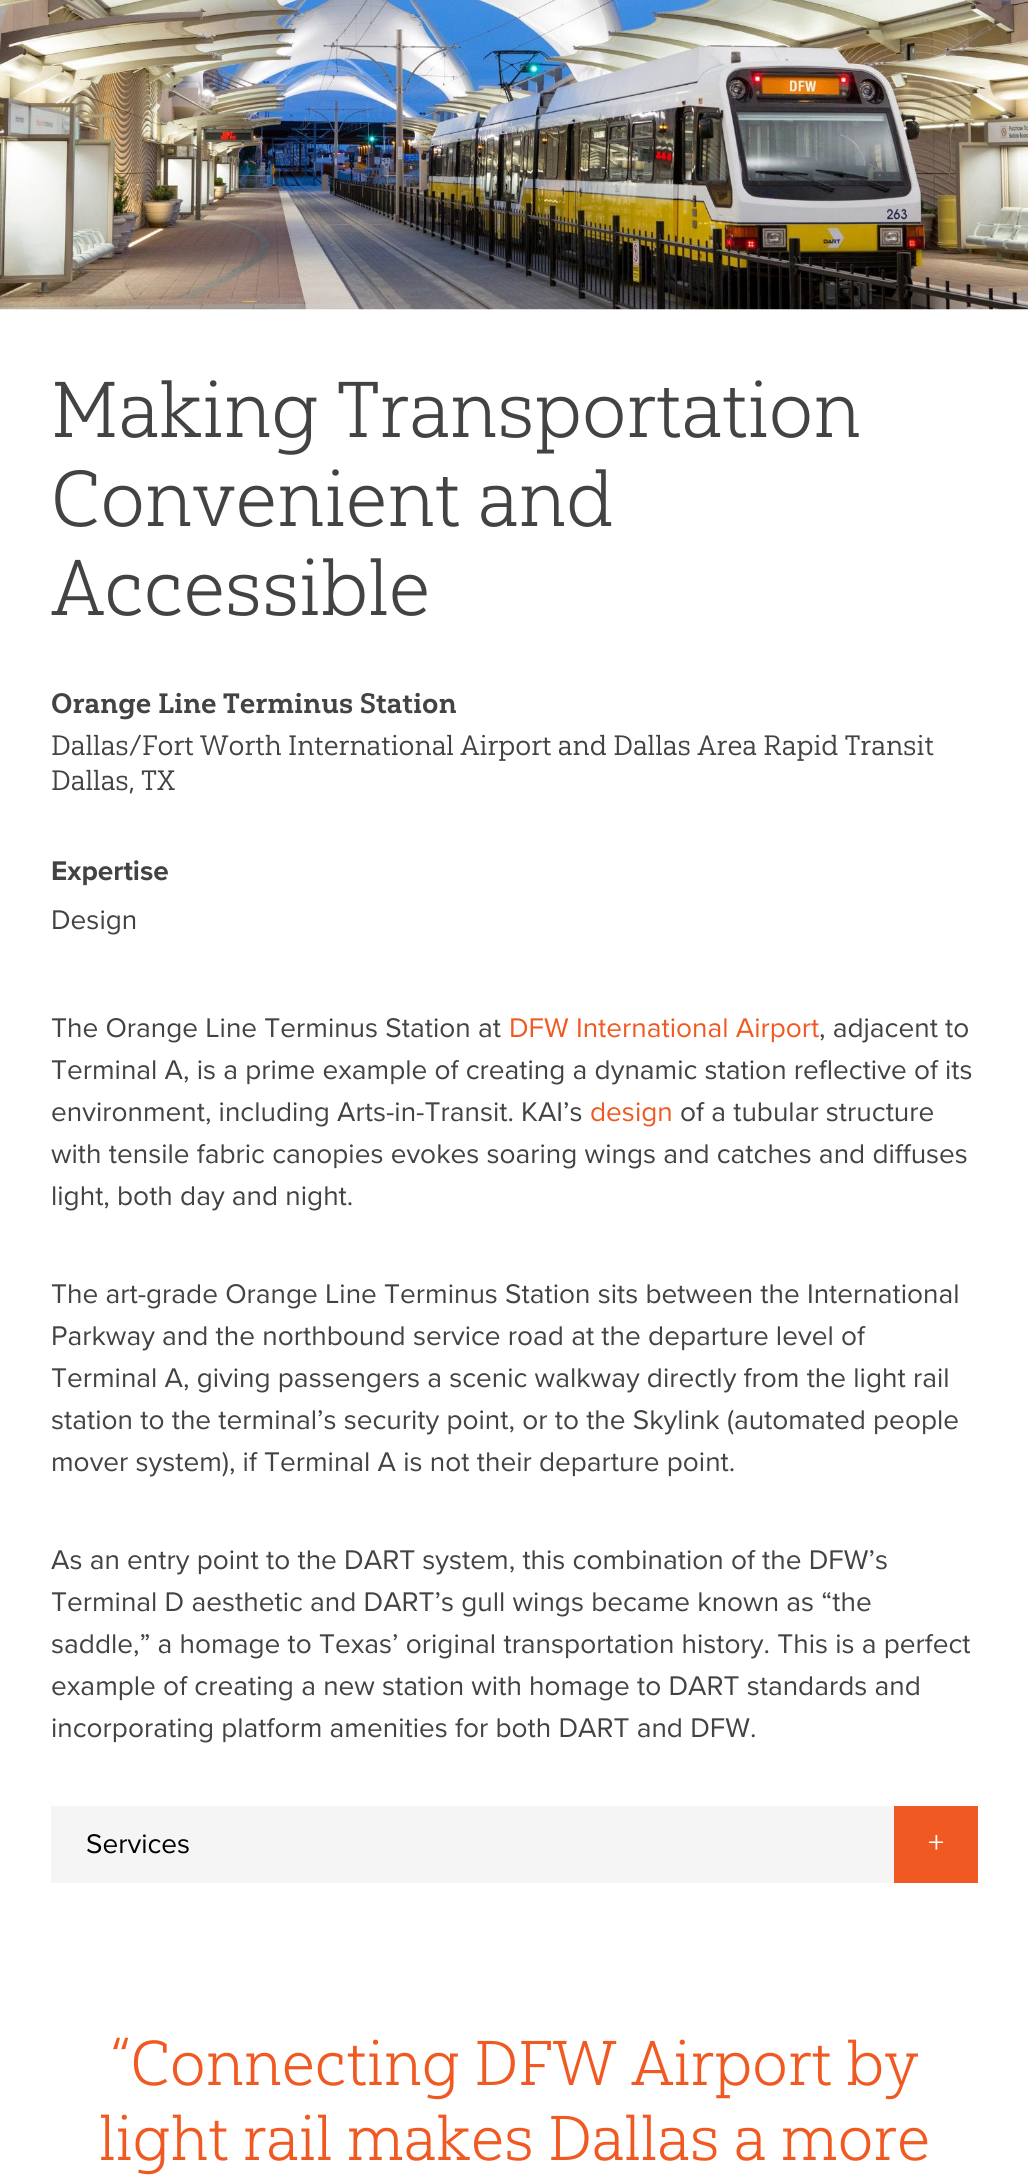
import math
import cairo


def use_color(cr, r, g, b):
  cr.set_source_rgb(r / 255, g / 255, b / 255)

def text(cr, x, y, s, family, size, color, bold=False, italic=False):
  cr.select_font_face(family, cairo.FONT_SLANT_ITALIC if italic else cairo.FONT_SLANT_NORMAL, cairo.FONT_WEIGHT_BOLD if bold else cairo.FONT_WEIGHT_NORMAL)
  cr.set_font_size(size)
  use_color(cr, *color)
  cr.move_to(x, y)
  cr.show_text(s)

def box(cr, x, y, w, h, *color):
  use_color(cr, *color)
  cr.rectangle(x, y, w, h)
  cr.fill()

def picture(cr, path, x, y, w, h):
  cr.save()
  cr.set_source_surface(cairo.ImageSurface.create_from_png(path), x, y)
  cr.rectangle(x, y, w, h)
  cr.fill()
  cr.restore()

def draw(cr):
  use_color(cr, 255, 255, 255)
  cr.paint()
  picture(cr, "img_01.png", 0, 0, 1028, 310)
  box(cr, 51, 1806, 843, 77, 245, 245, 245)
  box(cr, 894, 1806, 84, 77, 240, 90, 34)
  picture(cr, "img_02.png", 929, 1835, 14, 15)
  text(cr, 51, 437, "Making Transportation", "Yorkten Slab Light", 78.75, (67, 67, 67))
  text(cr, 51, 526, "Convenient and", "Yorkten Slab Light", 78.75, (67, 67, 67))
  text(cr, 51, 615, "Accessible", "Yorkten Slab Light", 78.75, (67, 67, 67))
  text(cr, 51, 713, "Orange Line Terminus Station", "Yorkten Slab ExtraBold", 28, (67, 67, 67))
  text(cr, 51, 755, "Dallas/Fort Worth International Airport and Dallas Area Rapid Transit", "Yorkten Slab Medium", 28, (67, 67, 67))
  text(cr, 51, 790, "Dallas, TX", "Yorkten Slab Medium", 28, (67, 67, 67))
  text(cr, 51, 880, "Expertise", "Proxima Nova", 28, (67, 67, 67), bold=True)
  text(cr, 51, 929, "Design", "Proxima Nova", 28, (67, 67, 67))
  text(cr, 51, 1037, "The Orange Line Terminus Station at", "Proxima Nova", 28, (67, 67, 67))
  text(cr, 509, 1037, "DFW International Airport", "Proxima Nova", 28, (240, 90, 34))
  text(cr, 819, 1037, ", adjacent to", "Proxima Nova", 28, (67, 67, 67))
  text(cr, 51, 1079, "Terminal A, is a prime example of creating a dynamic station reflective of its", "Proxima Nova", 28, (67, 67, 67))
  text(cr, 51, 1121, "environment, including Arts-in-Transit. KAI’s", "Proxima Nova", 28, (67, 67, 67))
  text(cr, 590, 1121, "design", "Proxima Nova", 28, (240, 90, 34))
  text(cr, 680, 1121, "of a tubular structure", "Proxima Nova", 28, (67, 67, 67))
  text(cr, 51, 1163, "with tensile fabric canopies evokes soaring wings and catches and diffuses", "Proxima Nova", 28, (67, 67, 67))
  text(cr, 51, 1205, "light, both day and night.", "Proxima Nova", 28, (67, 67, 67))
  text(cr, 51, 1303, "The art-grade Orange Line Terminus Station sits between the International", "Proxima Nova", 28, (67, 67, 67))
  text(cr, 51, 1345, "Parkway and the northbound service road at the departure level of", "Proxima Nova", 28, (67, 67, 67))
  text(cr, 51, 1387, "Terminal A, giving passengers a scenic walkway directly from the light rail", "Proxima Nova", 28, (67, 67, 67))
  text(cr, 51, 1429, "station to the terminal’s security point, or to the Skylink (automated people", "Proxima Nova", 28, (67, 67, 67))
  text(cr, 51, 1471, "mover system), if Terminal A is not their departure point.", "Proxima Nova", 28, (67, 67, 67))
  text(cr, 51, 1569, "As an entry point to the DART system, this combination of the DFW’s", "Proxima Nova", 28, (67, 67, 67))
  text(cr, 51, 1611, "Terminal D aesthetic and DART’s gull wings became known as “the", "Proxima Nova", 28, (67, 67, 67))
  text(cr, 51, 1653, "saddle,” a homage to Texas’ original transportation history. This is a perfect", "Proxima Nova", 28, (67, 67, 67))
  text(cr, 51, 1695, "example of creating a new station with homage to DART standards and", "Proxima Nova", 28, (67, 67, 67))
  text(cr, 51, 1737, "incorporating platform amenities for both DART and DFW.", "Proxima Nova", 28, (67, 67, 67))
  text(cr, 86, 1853, "Services", "Proxima Nova", 28, (0, 0, 0))
  text(cr, 110, 2085, "“Connecting DFW Airport by", "Yorkten Slab Light", 63, (240, 90, 34))
  text(cr, 99, 2160, "light rail makes Dallas a more", "Yorkten Slab Light", 63, (240, 90, 34))


surface = cairo.ImageSurface(cairo.FORMAT_RGB24, 1028, 2178)
cr = cairo.Context(surface)
options = cairo.FontOptions()
options.set_hint_metrics(cairo.HINT_METRICS_OFF)
options.set_hint_style(cairo.HINT_STYLE_NONE)
cr.set_font_options(options)
cr.set_miter_limit(4)
draw(cr)
surface.write_to_png("out.png")
